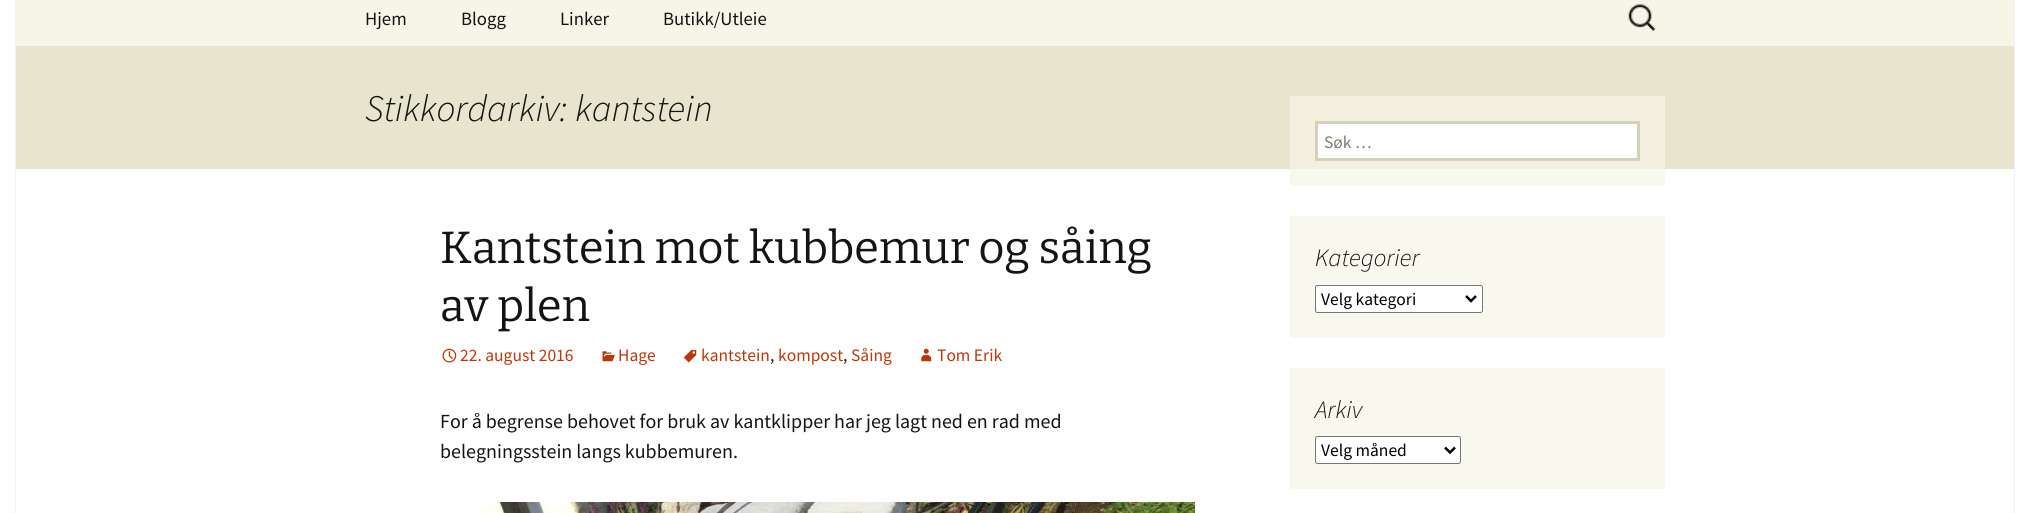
import math
import cairo


def use_color(cr, r, g, b):
  cr.set_source_rgb(r / 255, g / 255, b / 255)

def text(cr, x, y, s, family, size, color, bold=False, italic=False):
  cr.select_font_face(family, cairo.FONT_SLANT_ITALIC if italic else cairo.FONT_SLANT_NORMAL, cairo.FONT_WEIGHT_BOLD if bold else cairo.FONT_WEIGHT_NORMAL)
  cr.set_font_size(size)
  use_color(cr, *color)
  cr.move_to(x, y)
  cr.show_text(s)

def box(cr, x, y, w, h, *color):
  use_color(cr, *color)
  cr.rectangle(x, y, w, h)
  cr.fill()

def round_rect(cr, x, y, w, h, r):
  cr.new_sub_path()
  for i, (u, v) in enumerate([(x + w - r, y + h - r), (x + r, y + h - r), (x + r, y + r), (x + w - r, y + r)]):
    cr.arc(u, v, r, i * math.pi / 2, (i + 1) * math.pi / 2)
  cr.close_path()

def picture(cr, path, x, y, w, h):
  cr.save()
  cr.set_source_surface(cairo.ImageSurface.create_from_png(path), x, y)
  cr.rectangle(x, y, w, h)
  cr.fill()
  cr.restore()

def draw(cr):
  use_color(cr, 255, 255, 255)
  cr.paint()
  box(cr, 1290, 169, 375, 17, 249, 248, 238)
  box(cr, 2014, 0, 1, 513, 242, 242, 242)
  box(cr, 15, 0, 1, 513, 242, 242, 242)
  box(cr, 16, 0, 1998, 46, 247, 245, 231)
  picture(cr, "img_01.png", 1628, 4, 28, 27)
  box(cr, 16, 46, 1998, 123, 232, 229, 206)
  box(cr, 1290, 96, 375, 73, 243, 240, 224)
  picture(cr, "img_02.png", 442, 348, 15, 15)
  picture(cr, "img_03.png", 602, 351, 13, 11)
  picture(cr, "img_04.png", 683, 350, 14, 13)
  picture(cr, "img_05.png", 921, 348, 11, 14)
  picture(cr, "img_06.png", 440, 502, 755, 11)
  use_color(cr, 255, 255, 255)
  cr.rectangle(1316.5, 122.5, 322, 37)
  cr.fill_preserve()
  use_color(cr, 212, 208, 186)
  cr.set_line_width(3)
  cr.stroke()
  box(cr, 1290, 216, 375, 122, 249, 248, 238)
  use_color(cr, 255, 255, 255)
  round_rect(cr, 1315.5, 285.5, 167, 27, 2)
  cr.fill_preserve()
  use_color(cr, 118, 118, 118)
  cr.set_line_width(1)
  cr.stroke()
  cr.new_path()
  cr.move_to(1466, 296)
  cr.line_to(1471, 301)
  cr.line_to(1476, 296)
  use_color(cr, 0, 0, 0)
  cr.set_line_width(2.5)
  cr.stroke()
  box(cr, 1290, 368, 375, 121, 249, 248, 238)
  use_color(cr, 255, 255, 255)
  round_rect(cr, 1315.5, 436.5, 145, 27, 2)
  cr.fill_preserve()
  use_color(cr, 118, 118, 118)
  cr.set_line_width(1)
  cr.stroke()
  cr.new_path()
  cr.move_to(1445, 447.5)
  cr.line_to(1450, 452.5)
  cr.line_to(1455, 447.5)
  use_color(cr, 0, 0, 0)
  cr.set_line_width(2.5)
  cr.stroke()
  text(cr, 365, 25, "Hjem", "Source Sans Pro", 18.75, (20, 20, 18))
  text(cr, 461, 25, "Blogg", "Source Sans Pro", 18.75, (20, 20, 18))
  text(cr, 560, 25, "Linker", "Source Sans Pro", 18.75, (20, 20, 18))
  text(cr, 663, 25, "Butikk/Utleie", "Source Sans Pro", 18.75, (20, 20, 18))
  text(cr, 365, 121, "Stikkordarkiv: kantstein", "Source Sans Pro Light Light", 37.5, (20, 20, 18), italic=True)
  text(cr, 440, 263, "Kantstein mot kubbemur og såing", "Bitter Thin", 45, (20, 20, 18))
  text(cr, 440, 321, "av plen", "Bitter Thin", 45, (20, 20, 18))
  text(cr, 460, 361, "22. august 2016", "Source Sans Pro", 17.5, (188, 54, 10))
  text(cr, 618, 361, "Hage", "Source Sans Pro", 17.5, (188, 54, 10))
  text(cr, 701, 361, "kantstein", "Source Sans Pro", 17.5, (188, 54, 10))
  text(cr, 770, 361, ",", "Source Sans Pro", 17.5, (20, 20, 18))
  text(cr, 778, 361, "kompost", "Source Sans Pro", 17.5, (188, 54, 10))
  text(cr, 843, 361, ",", "Source Sans Pro", 17.5, (20, 20, 18))
  text(cr, 851, 361, "Såing", "Source Sans Pro", 17.5, (188, 54, 10))
  text(cr, 937, 361, "Tom Erik", "Source Sans Pro", 17.5, (188, 54, 10))
  text(cr, 440, 428, "For å begrense behovet for bruk av kantklipper har jeg lagt ned en rad med", "Source Sans Pro", 20, (20, 20, 18))
  text(cr, 440, 458, "belegningsstein langs kubbemuren.", "Source Sans Pro", 20, (20, 20, 18))
  text(cr, 1324, 148, "Søk …", "Source Sans Pro", 17.5, (125, 123, 109))
  text(cr, 1315, 266, "Kategorier", "Source Sans Pro Light Light", 25, (20, 20, 18), italic=True)
  text(cr, 1321, 305, "Velg kategori", "Source Sans Pro", 17.5, (0, 0, 0))
  text(cr, 1315, 418, "Arkiv", "Source Sans Pro Light Light", 25, (20, 20, 18), italic=True)
  text(cr, 1321, 456, "Velg måned", "Source Sans Pro", 17.5, (0, 0, 0))


surface = cairo.ImageSurface(cairo.FORMAT_RGB24, 2029, 513)
cr = cairo.Context(surface)
options = cairo.FontOptions()
options.set_hint_metrics(cairo.HINT_METRICS_OFF)
options.set_hint_style(cairo.HINT_STYLE_NONE)
cr.set_font_options(options)
cr.set_miter_limit(4)
draw(cr)
surface.write_to_png("out.png")
